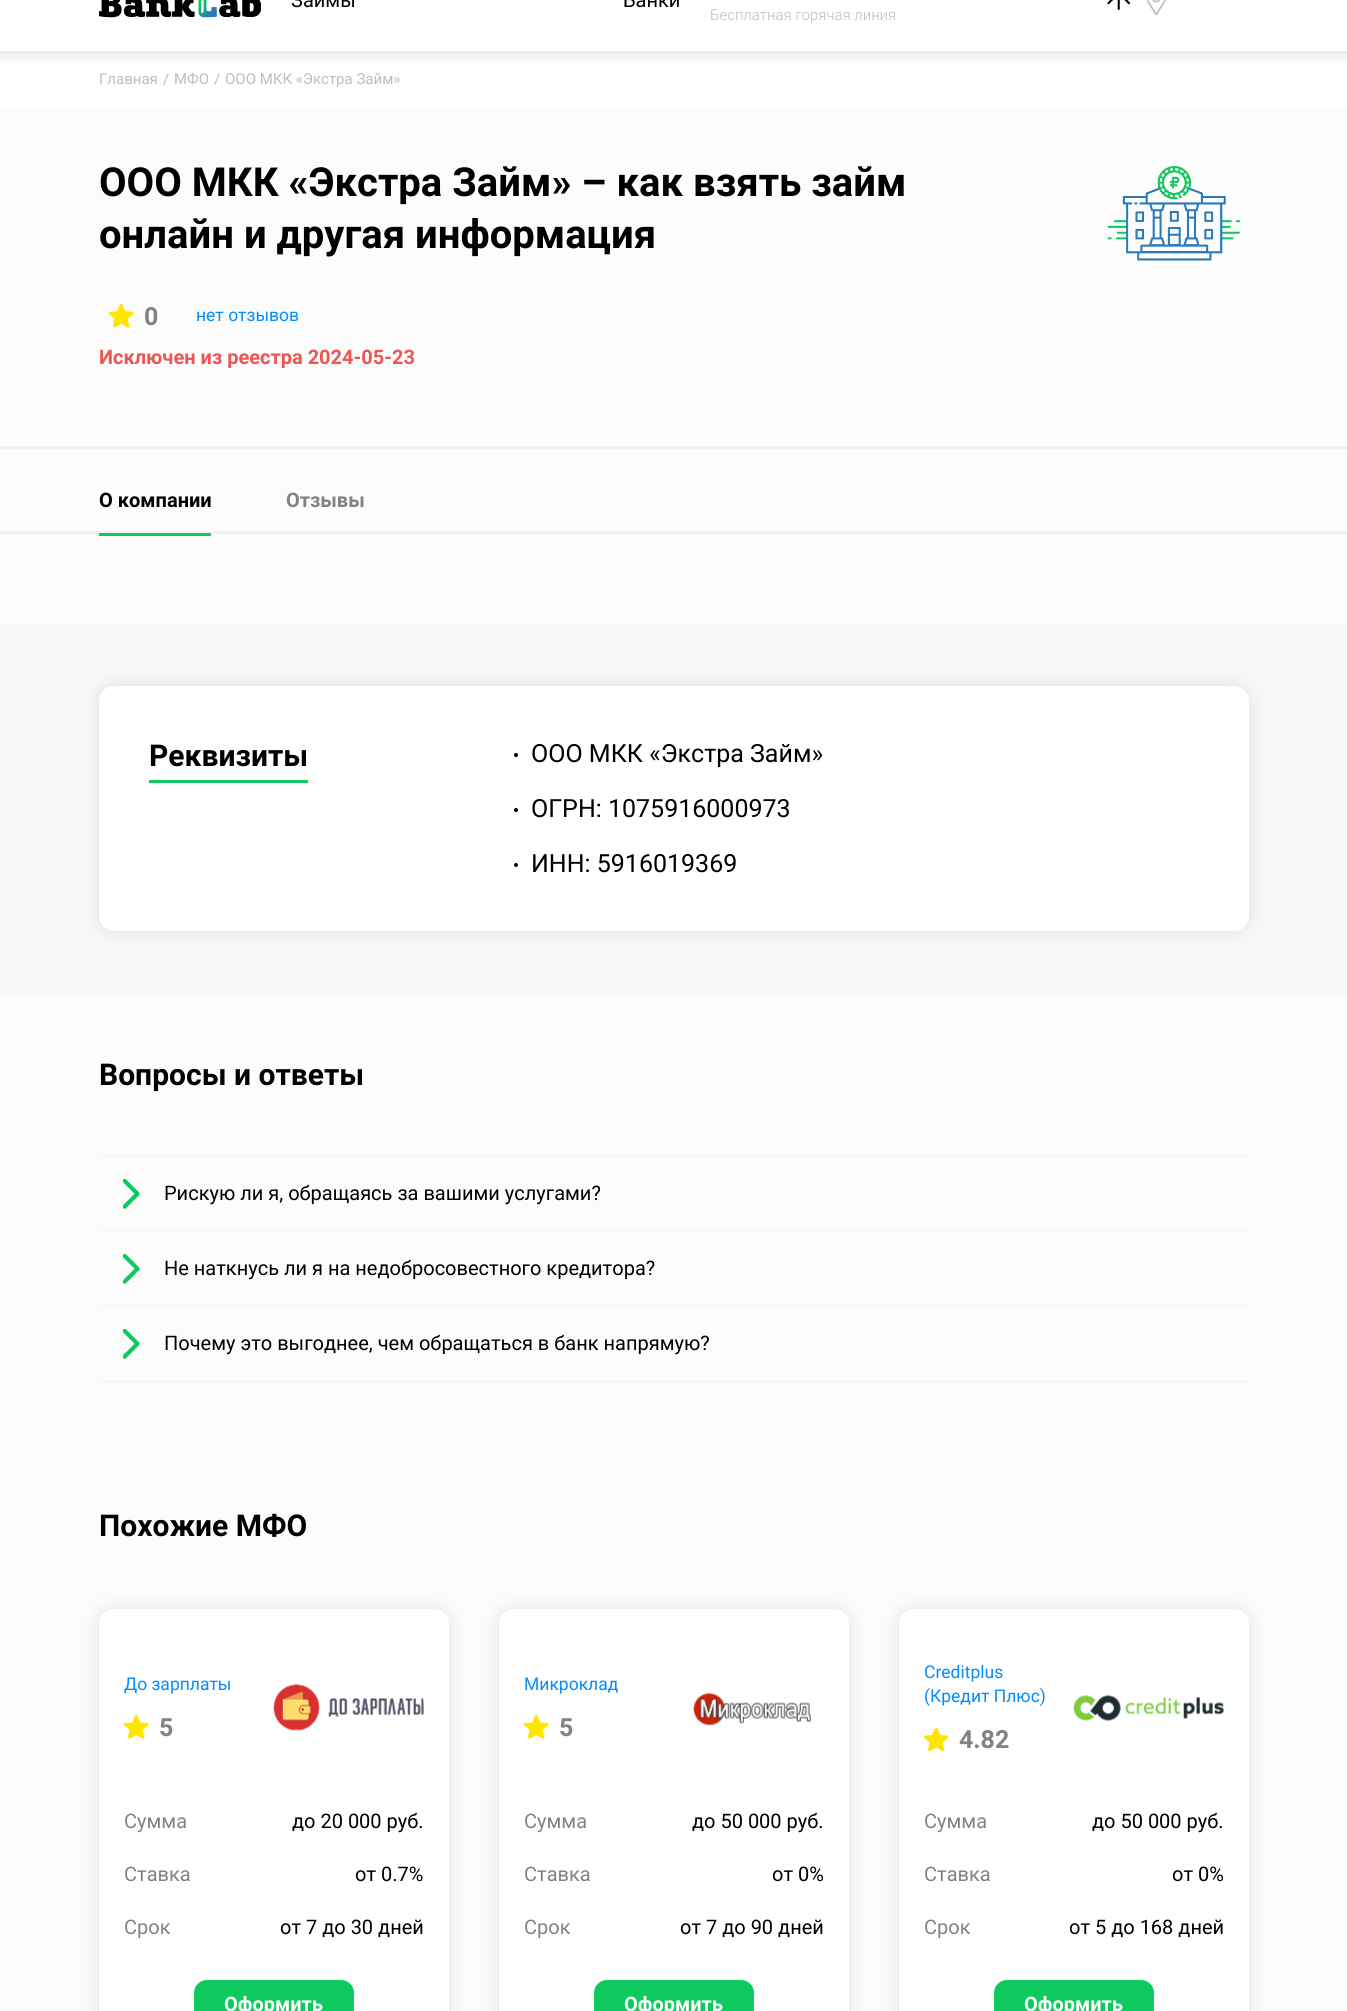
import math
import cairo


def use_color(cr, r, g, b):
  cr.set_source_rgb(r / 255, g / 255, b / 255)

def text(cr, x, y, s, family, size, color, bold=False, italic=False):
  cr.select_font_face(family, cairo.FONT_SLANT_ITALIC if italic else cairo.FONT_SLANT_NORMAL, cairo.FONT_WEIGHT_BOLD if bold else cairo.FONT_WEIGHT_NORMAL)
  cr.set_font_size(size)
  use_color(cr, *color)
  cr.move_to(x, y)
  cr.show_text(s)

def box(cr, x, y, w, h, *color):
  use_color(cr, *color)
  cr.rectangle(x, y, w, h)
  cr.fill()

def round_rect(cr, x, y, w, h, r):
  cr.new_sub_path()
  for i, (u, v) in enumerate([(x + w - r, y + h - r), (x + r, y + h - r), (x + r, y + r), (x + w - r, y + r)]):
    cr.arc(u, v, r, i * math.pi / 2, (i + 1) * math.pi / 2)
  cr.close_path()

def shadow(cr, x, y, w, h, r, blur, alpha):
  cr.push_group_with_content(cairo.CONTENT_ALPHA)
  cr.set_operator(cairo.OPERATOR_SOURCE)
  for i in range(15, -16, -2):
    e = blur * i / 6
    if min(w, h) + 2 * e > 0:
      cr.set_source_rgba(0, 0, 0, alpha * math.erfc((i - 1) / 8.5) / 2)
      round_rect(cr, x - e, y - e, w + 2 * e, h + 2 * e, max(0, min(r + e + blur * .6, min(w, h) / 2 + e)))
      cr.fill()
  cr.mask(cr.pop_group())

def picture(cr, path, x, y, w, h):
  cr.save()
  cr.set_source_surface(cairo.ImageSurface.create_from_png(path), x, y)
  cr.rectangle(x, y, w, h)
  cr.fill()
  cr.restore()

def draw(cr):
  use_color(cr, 252, 252, 252)
  cr.paint()
  box(cr, 0, 51, 1347, 57, 255, 255, 255)
  use_color(cr, 0, 0, 0)
  shadow(cr, 0, -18, 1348, 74, 0, 6, 0.1)
  box(cr, 0, 0, 1347, 51, 255, 255, 255)
  picture(cr, "img_01.png", 99, 0, 162, 18)
  picture(cr, "img_02.png", 1107, 0, 24, 10)
  picture(cr, "img_03.png", 1146, 0, 20, 15)
  box(cr, 0, 446, 1347, 3, 242, 242, 242)
  picture(cr, "img_04.png", 109, 304, 25, 24)
  picture(cr, "img_05.png", 1107, 166, 133, 95)
  box(cr, 0, 531, 1347, 3, 242, 242, 242)
  box(cr, 99, 533, 112, 3, 14, 201, 94)
  box(cr, 0, 624, 1347, 370, 248, 248, 248)
  use_color(cr, 0, 0, 0)
  shadow(cr, 99, 686, 1150, 245, 15, 9.5, 0.1)
  use_color(cr, 255, 255, 255)
  round_rect(cr, 99, 686, 1150, 245, 15)
  cr.fill()
  box(cr, 149, 780, 159, 3, 14, 201, 94)
  use_color(cr, 0, 0, 0)
  cr.arc(516, 755, 2, 0, 2 * math.pi)
  cr.fill()
  cr.arc(516, 810, 2, 0, 2 * math.pi)
  cr.fill()
  cr.arc(516, 865, 2, 0, 2 * math.pi)
  cr.fill()
  box(cr, 99, 1155, 1150, 1, 242, 242, 242)
  picture(cr, "img_06.png", 123, 1179, 17, 30)
  box(cr, 99, 1230, 1150, 1, 242, 242, 242)
  picture(cr, "img_06.png", 123, 1254, 17, 30)
  box(cr, 99, 1305, 1150, 1, 242, 242, 242)
  box(cr, 99, 1381, 1150, 1, 242, 242, 242)
  picture(cr, "img_06.png", 123, 1329, 17, 30)
  use_color(cr, 0, 0, 0)
  shadow(cr, 99, 1609, 350, 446, 15, 9.5, 0.1)
  use_color(cr, 255, 255, 255)
  round_rect(cr, 99, 1609, 350, 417, 15)
  cr.fill()
  picture(cr, "img_07.png", 124, 1715, 25, 24)
  picture(cr, "img_08.png", 273, 1684, 151, 47)
  use_color(cr, 14, 201, 94)
  round_rect(cr, 194, 1980, 160, 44, 13)
  cr.fill()
  use_color(cr, 0, 0, 0)
  shadow(cr, 499, 1609, 350, 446, 15, 9.5, 0.1)
  use_color(cr, 255, 255, 255)
  round_rect(cr, 499, 1609, 350, 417, 15)
  cr.fill()
  picture(cr, "img_07.png", 524, 1715, 25, 24)
  picture(cr, "img_09.png", 693, 1693, 118, 33)
  use_color(cr, 14, 201, 94)
  round_rect(cr, 594, 1980, 160, 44, 13)
  cr.fill()
  use_color(cr, 0, 0, 0)
  shadow(cr, 899, 1609, 350, 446, 15, 9.5, 0.1)
  use_color(cr, 255, 255, 255)
  round_rect(cr, 899, 1609, 350, 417, 15)
  cr.fill()
  picture(cr, "img_10.png", 924, 1728, 25, 23)
  picture(cr, "img_11.png", 1073, 1695, 151, 26)
  use_color(cr, 14, 201, 94)
  round_rect(cr, 994, 1980, 160, 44, 13)
  cr.fill()
  text(cr, 291, 7, "Займы", "Roboto", 20, (0, 0, 0))
  text(cr, 623, 7, "Банки", "Roboto", 20, (0, 0, 0))
  text(cr, 710, 20, "Бесплатная горячая линия", "Roboto Light", 15, (189, 189, 189))
  text(cr, 99, 84, "Главная", "Roboto", 15, (189, 189, 189))
  text(cr, 163, 84, "/", "Roboto", 15, (189, 189, 189))
  text(cr, 174, 84, "МФО", "Roboto", 15, (189, 189, 189))
  text(cr, 214, 84, "/", "Roboto", 15, (189, 189, 189))
  text(cr, 225, 84, "ООО МКК «Экстра Займ»", "Roboto", 15, (189, 189, 189))
  text(cr, 99, 196, "ООО МКК «Экстра Займ» – как взять займ", "Roboto", 40, (0, 0, 0), bold=True)
  text(cr, 99, 248, "онлайн и другая информация", "Roboto", 40, (0, 0, 0), bold=True)
  text(cr, 144, 325, "0", "Roboto", 25, (130, 130, 130), bold=True)
  text(cr, 196, 321, "нет отзывов", "Roboto", 17.5, (1, 140, 255))
  text(cr, 99, 364, "Исключен из реестра 2024-05-23", "Roboto", 20, (235, 87, 87), bold=True)
  text(cr, 99, 507, "О компании", "Roboto", 20, (0, 0, 0), bold=True)
  text(cr, 286, 507, "Отзывы", "Roboto", 20, (130, 130, 130), bold=True)
  text(cr, 149, 766, "Реквизиты", "Roboto", 30, (0, 0, 0), bold=True)
  text(cr, 531, 762, "ООО МКК «Экстра Займ»", "Roboto", 25, (0, 0, 0))
  text(cr, 531, 817, "ОГРН: 1075916000973", "Roboto", 25, (0, 0, 0))
  text(cr, 531, 872, "ИНН: 5916019369", "Roboto", 25, (0, 0, 0))
  text(cr, 99, 1085, "Вопросы и ответы", "Roboto", 30, (0, 0, 0), bold=True)
  text(cr, 164, 1200, "Рискую ли я, обращаясь за вашими услугами?", "Roboto", 20, (0, 0, 0))
  text(cr, 164, 1275, "Не наткнусь ли я на недобросовестного кредитора?", "Roboto", 20, (0, 0, 0))
  text(cr, 164, 1350, "Почему это выгоднее, чем обращаться в банк напрямую?", "Roboto", 20, (0, 0, 0))
  text(cr, 99, 1536, "Похожие МФО", "Roboto", 30, (0, 0, 0), bold=True)
  text(cr, 124, 1690, "До зарплаты", "Roboto", 17.5, (1, 140, 255))
  text(cr, 159, 1736, "5", "Roboto", 25, (130, 130, 130), bold=True)
  text(cr, 124, 1828, "Сумма", "Roboto", 20, (130, 130, 130))
  text(cr, 292, 1828, "до 20 000 руб.", "Roboto", 20, (0, 0, 0))
  text(cr, 124, 1881, "Ставка", "Roboto", 20, (130, 130, 130))
  text(cr, 355, 1881, "от 0.7%", "Roboto", 20, (0, 0, 0))
  text(cr, 124, 1934, "Срок", "Roboto", 20, (130, 130, 130))
  text(cr, 280, 1934, "от 7 до 30 дней", "Roboto", 20, (0, 0, 0))
  text(cr, 224, 2011, "Оформить", "Roboto", 20, (255, 255, 255), bold=True)
  text(cr, 524, 1690, "Микроклад", "Roboto", 17.5, (1, 140, 255))
  text(cr, 559, 1736, "5", "Roboto", 25, (130, 130, 130), bold=True)
  text(cr, 524, 1828, "Сумма", "Roboto", 20, (130, 130, 130))
  text(cr, 692, 1828, "до 50 000 руб.", "Roboto", 20, (0, 0, 0))
  text(cr, 524, 1881, "Ставка", "Roboto", 20, (130, 130, 130))
  text(cr, 772, 1881, "от 0%", "Roboto", 20, (0, 0, 0))
  text(cr, 524, 1934, "Срок", "Roboto", 20, (130, 130, 130))
  text(cr, 680, 1934, "от 7 до 90 дней", "Roboto", 20, (0, 0, 0))
  text(cr, 624, 2011, "Оформить", "Roboto", 20, (255, 255, 255), bold=True)
  text(cr, 924, 1678, "Creditplus", "Roboto", 17.5, (1, 140, 255))
  text(cr, 924, 1702, "(Кредит Плюс)", "Roboto", 17.5, (1, 140, 255))
  text(cr, 959, 1748, "4.82", "Roboto", 25, (130, 130, 130), bold=True)
  text(cr, 924, 1828, "Сумма", "Roboto", 20, (130, 130, 130))
  text(cr, 1092, 1828, "до 50 000 руб.", "Roboto", 20, (0, 0, 0))
  text(cr, 924, 1881, "Ставка", "Roboto", 20, (130, 130, 130))
  text(cr, 1172, 1881, "от 0%", "Roboto", 20, (0, 0, 0))
  text(cr, 924, 1934, "Срок", "Roboto", 20, (130, 130, 130))
  text(cr, 1069, 1934, "от 5 до 168 дней", "Roboto", 20, (0, 0, 0))
  text(cr, 1024, 2011, "Оформить", "Roboto", 20, (255, 255, 255), bold=True)


surface = cairo.ImageSurface(cairo.FORMAT_RGB24, 1347, 2011)
cr = cairo.Context(surface)
options = cairo.FontOptions()
options.set_hint_metrics(cairo.HINT_METRICS_OFF)
options.set_hint_style(cairo.HINT_STYLE_NONE)
cr.set_font_options(options)
cr.set_miter_limit(4)
draw(cr)
surface.write_to_png("out.png")
